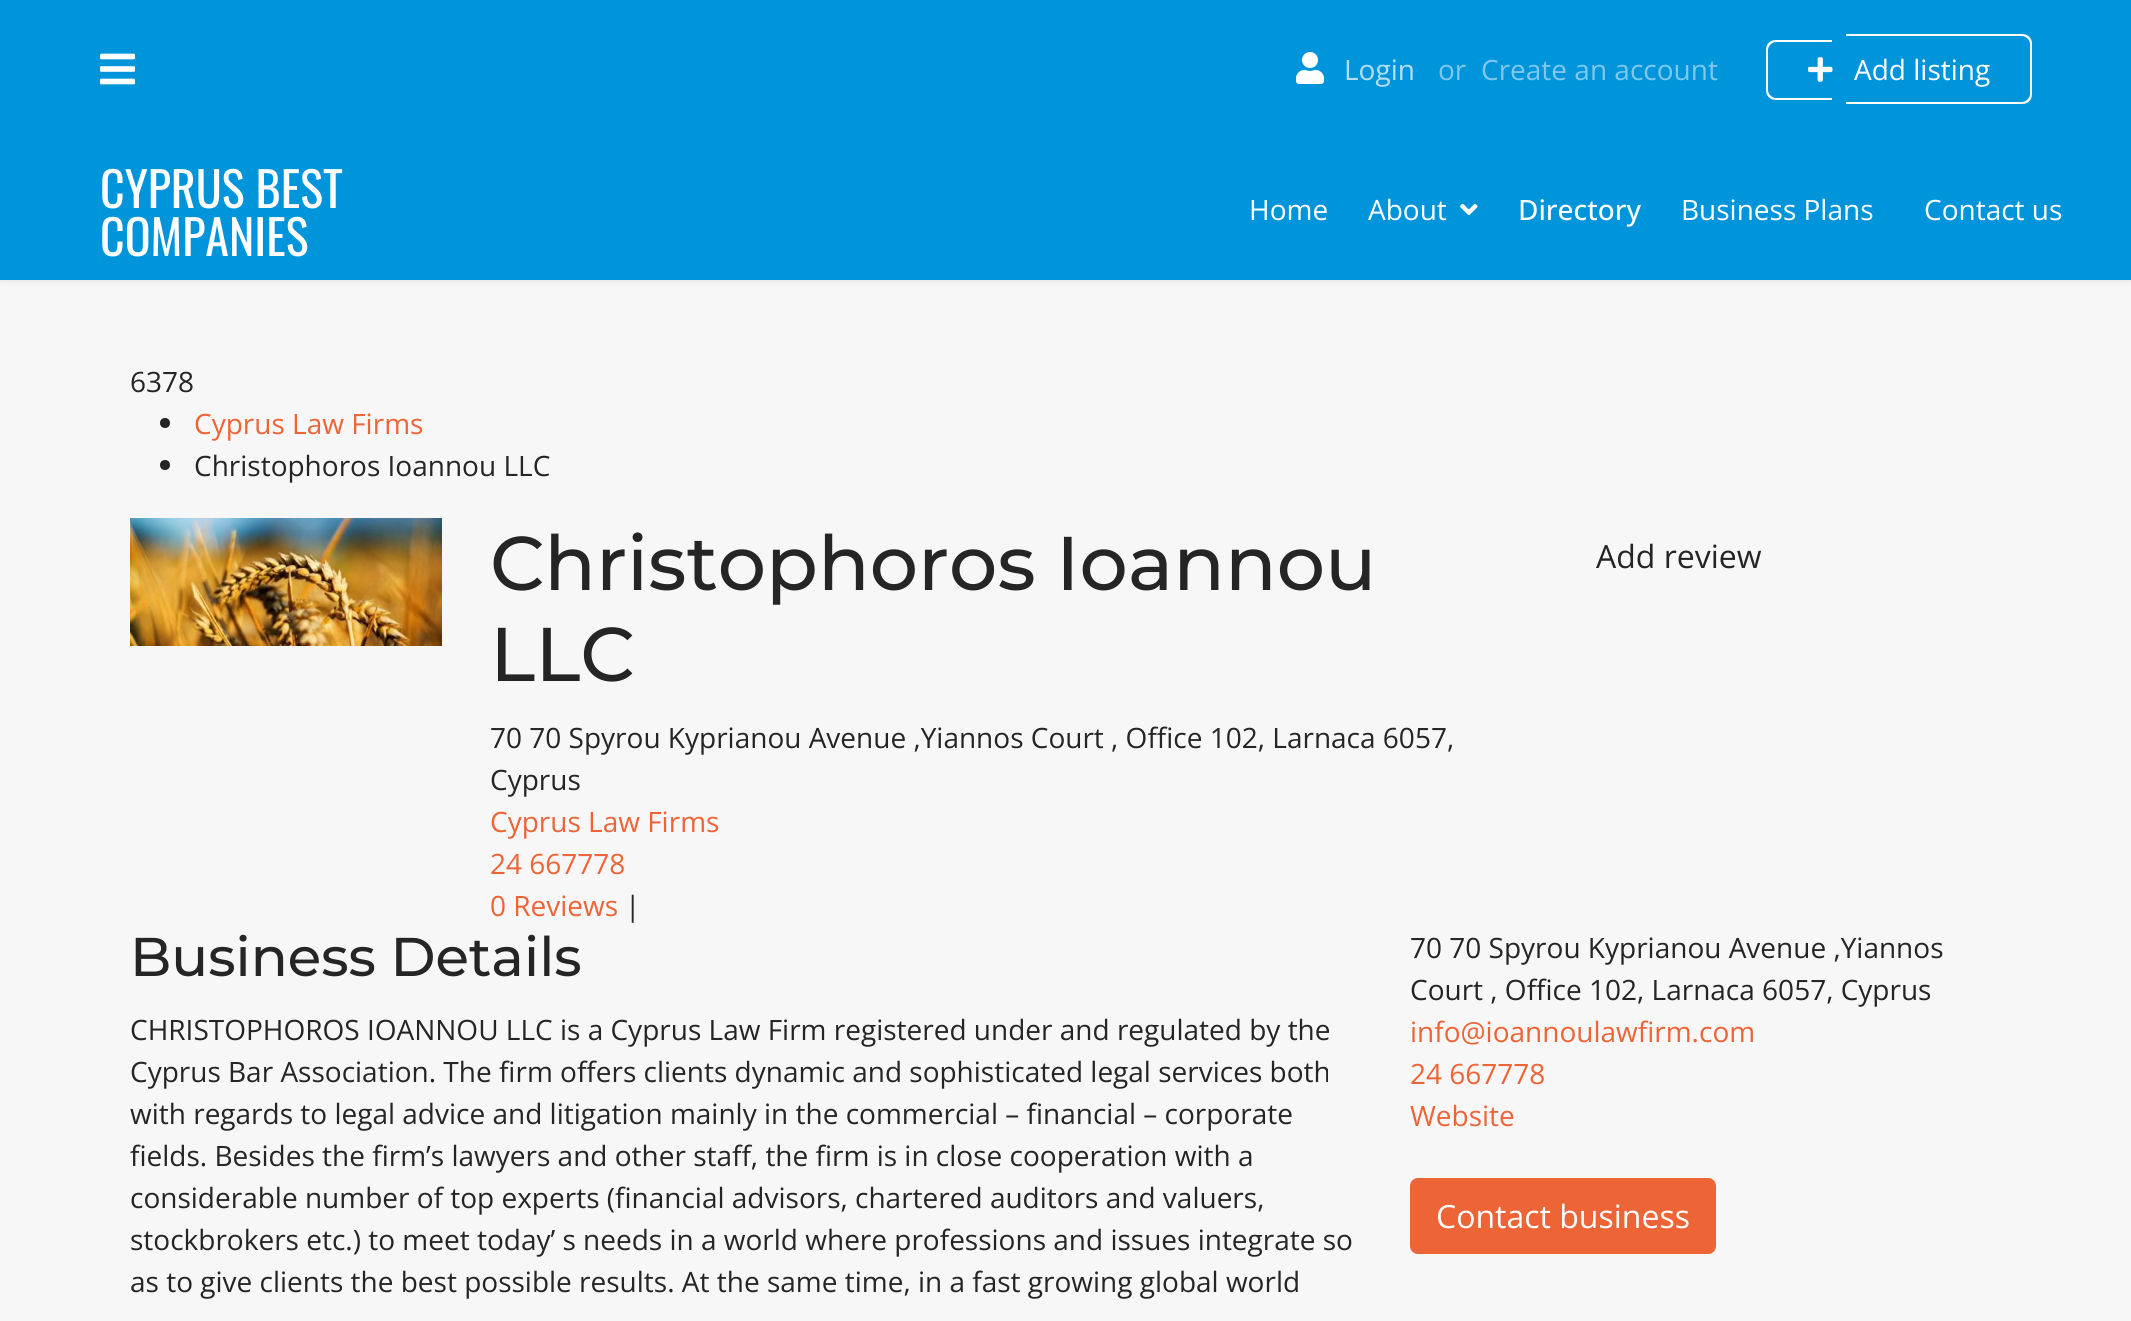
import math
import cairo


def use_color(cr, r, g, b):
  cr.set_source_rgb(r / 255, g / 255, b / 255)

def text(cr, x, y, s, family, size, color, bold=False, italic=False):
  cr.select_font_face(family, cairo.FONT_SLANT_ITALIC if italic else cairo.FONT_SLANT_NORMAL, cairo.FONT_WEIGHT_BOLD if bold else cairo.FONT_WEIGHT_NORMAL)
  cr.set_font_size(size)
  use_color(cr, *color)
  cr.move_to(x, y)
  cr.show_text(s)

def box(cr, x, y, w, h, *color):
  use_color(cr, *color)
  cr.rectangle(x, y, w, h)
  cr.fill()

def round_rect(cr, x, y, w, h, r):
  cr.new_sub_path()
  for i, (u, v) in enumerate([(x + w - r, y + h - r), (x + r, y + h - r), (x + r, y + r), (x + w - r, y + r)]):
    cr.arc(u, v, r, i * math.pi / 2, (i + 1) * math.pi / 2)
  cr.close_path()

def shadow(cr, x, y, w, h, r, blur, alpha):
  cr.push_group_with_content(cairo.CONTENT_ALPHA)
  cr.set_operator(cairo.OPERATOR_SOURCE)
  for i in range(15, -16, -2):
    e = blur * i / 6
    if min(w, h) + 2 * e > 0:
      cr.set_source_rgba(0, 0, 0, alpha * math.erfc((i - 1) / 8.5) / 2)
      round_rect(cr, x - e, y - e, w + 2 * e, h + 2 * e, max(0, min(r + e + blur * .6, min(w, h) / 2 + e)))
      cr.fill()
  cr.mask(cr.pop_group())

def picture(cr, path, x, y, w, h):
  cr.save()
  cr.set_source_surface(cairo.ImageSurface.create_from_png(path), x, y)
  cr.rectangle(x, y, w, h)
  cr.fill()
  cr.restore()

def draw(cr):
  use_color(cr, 247, 247, 247)
  cr.paint()
  use_color(cr, 0, 0, 0)
  shadow(cr, 0, 0, 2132, 280, 0, 4, 0.1)
  box(cr, 0, 0, 2131, 280, 0, 149, 219)
  picture(cr, "img_01.png", 100, 53, 35, 32)
  picture(cr, "img_02.png", 1296, 52, 28, 32)
  use_color(cr, 255, 255, 255)
  cr.set_fill_rule(cairo.FILL_RULE_EVEN_ODD)
  cr.new_path()
  cr.move_to(1776, 40)
  cr.line_to(1832, 40)
  cr.line_to(1832, 100)
  cr.line_to(1776, 100)
  cr.curve_to(1770, 100, 1766, 96, 1766, 90)
  cr.line_to(1766, 50)
  cr.curve_to(1766, 44, 1770, 40, 1776, 40)
  cr.close_path()
  cr.move_to(1776, 42)
  cr.line_to(1832, 42)
  cr.line_to(1832, 98)
  cr.line_to(1776, 98)
  cr.curve_to(1772, 98, 1768, 94, 1768, 90)
  cr.line_to(1768, 50)
  cr.curve_to(1768, 46, 1772, 42, 1776, 42)
  cr.close_path()
  cr.fill()
  cr.new_path()
  cr.move_to(1846, 34)
  cr.line_to(2022, 34)
  cr.curve_to(2028, 34, 2032, 38, 2032, 44)
  cr.line_to(2032, 94)
  cr.curve_to(2032, 100, 2028, 104, 2022, 104)
  cr.line_to(1846, 104)
  cr.close_path()
  cr.move_to(1846, 36)
  cr.line_to(2022, 36)
  cr.curve_to(2026, 36, 2030, 40, 2030, 44)
  cr.line_to(2030, 94)
  cr.curve_to(2030, 98, 2026, 102, 2022, 102)
  cr.line_to(1846, 102)
  cr.close_path()
  cr.fill()
  picture(cr, "img_03.png", 1808, 57, 25, 25)
  picture(cr, "img_04.png", 1460, 203, 18, 13)
  use_color(cr, 37, 37, 37)
  cr.arc(165, 423, 5, 0, 2 * math.pi)
  cr.fill()
  cr.arc(165, 465, 5, 0, 2 * math.pi)
  cr.fill()
  picture(cr, "img_05.png", 130, 518, 312, 128)
  use_color(cr, 237, 100, 55)
  round_rect(cr, 1411, 1179, 304, 74, 7)
  cr.fill_preserve()
  cr.stroke()
  text(cr, 100, 208, "CYPRUS BEST", "Oswald", 48, (255, 255, 255))
  text(cr, 100, 256, "COMPANIES", "Oswald", 48, (255, 255, 255))
  text(cr, 1344, 80, "Login", "Open Sans", 28, (179, 223, 244))
  text(cr, 1438, 80, "or", "Open Sans", 28, (125, 201, 237))
  text(cr, 1481, 80, "Create an account", "Open Sans", 28, (125, 201, 237))
  text(cr, 1854, 80, "Add listing", "Open Sans", 28, (255, 255, 255))
  text(cr, 1249, 220, "Home", "Open Sans", 28, (255, 255, 255))
  text(cr, 1368, 220, "About", "Open Sans", 28, (255, 255, 255))
  text(cr, 1518, 220, "Directory", "Open Sans Medium", 28, (255, 255, 255))
  text(cr, 1681, 220, "Business Plans", "Open Sans", 28, (255, 255, 255))
  text(cr, 1924, 220, "Contact us", "Open Sans", 28, (255, 255, 255))
  text(cr, 130, 392, "6378", "Open Sans", 28, (37, 37, 37))
  text(cr, 194, 434, "Cyprus Law Firms", "Open Sans", 28, (237, 100, 55))
  text(cr, 194, 476, "Christophoros Ioannou LLC", "Open Sans", 28, (37, 37, 37))
  text(cr, 490, 590, "Christophoros Ioannou", "Montserrat Medium", 76, (37, 37, 37))
  text(cr, 490, 681, "LLC", "Montserrat Medium", 76, (37, 37, 37))
  text(cr, 490, 748, "70 70 Spyrou Kyprianou Avenue ,Yiannos Court , Office 102, Larnaca 6057,", "Open Sans", 28, (37, 37, 37))
  text(cr, 490, 790, "Cyprus", "Open Sans", 28, (37, 37, 37))
  text(cr, 490, 832, "Cyprus Law Firms", "Open Sans", 28, (237, 100, 55))
  text(cr, 490, 874, "24 667778", "Open Sans", 28, (237, 100, 55))
  text(cr, 490, 916, "0 Reviews", "Open Sans", 28, (237, 100, 55))
  text(cr, 625, 916, "|", "Open Sans", 28, (37, 37, 37))
  text(cr, 1596, 568, "Add review", "Open Sans", 32, (37, 37, 37))
  text(cr, 130, 976, "Business Details", "Montserrat Medium", 54.5, (37, 37, 37))
  text(cr, 130, 1040, "CHRISTOPHOROS IOANNOU LLC is a Cyprus Law Firm registered under and regulated by the", "Open Sans", 28, (37, 37, 37))
  text(cr, 130, 1082, "Cyprus Bar Association. The firm offers clients dynamic and sophisticated legal services both", "Open Sans", 28, (37, 37, 37))
  text(cr, 130, 1124, "with regards to legal advice and litigation mainly in the commercial – financial – corporate", "Open Sans", 28, (37, 37, 37))
  text(cr, 130, 1166, "fields. Besides the firm’s lawyers and other staff, the firm is in close cooperation with a", "Open Sans", 28, (37, 37, 37))
  text(cr, 130, 1208, "considerable number of top experts (financial advisors, chartered auditors and valuers,", "Open Sans", 28, (37, 37, 37))
  text(cr, 130, 1250, "stockbrokers etc.) to meet today’ s needs in a world where professions and issues integrate so", "Open Sans", 28, (37, 37, 37))
  text(cr, 130, 1292, "as to give clients the best possible results. At the same time, in a fast growing global world", "Open Sans", 28, (37, 37, 37))
  text(cr, 1410, 958, "70 70 Spyrou Kyprianou Avenue ,Yiannos", "Open Sans", 28, (37, 37, 37))
  text(cr, 1410, 1000, "Court , Office 102, Larnaca 6057, Cyprus", "Open Sans", 28, (37, 37, 37))
  text(cr, 1410, 1042, "info@ioannoulawfirm.com", "Open Sans", 28, (237, 100, 55))
  text(cr, 1410, 1084, "24 667778", "Open Sans", 28, (237, 100, 55))
  text(cr, 1410, 1126, "Website", "Open Sans", 28, (237, 100, 55))
  text(cr, 1436, 1228, "Contact business", "Open Sans", 32, (255, 255, 255))


surface = cairo.ImageSurface(cairo.FORMAT_RGB24, 2131, 1321)
cr = cairo.Context(surface)
options = cairo.FontOptions()
options.set_hint_metrics(cairo.HINT_METRICS_OFF)
options.set_hint_style(cairo.HINT_STYLE_NONE)
cr.set_font_options(options)
cr.set_miter_limit(4)
draw(cr)
surface.write_to_png("out.png")
